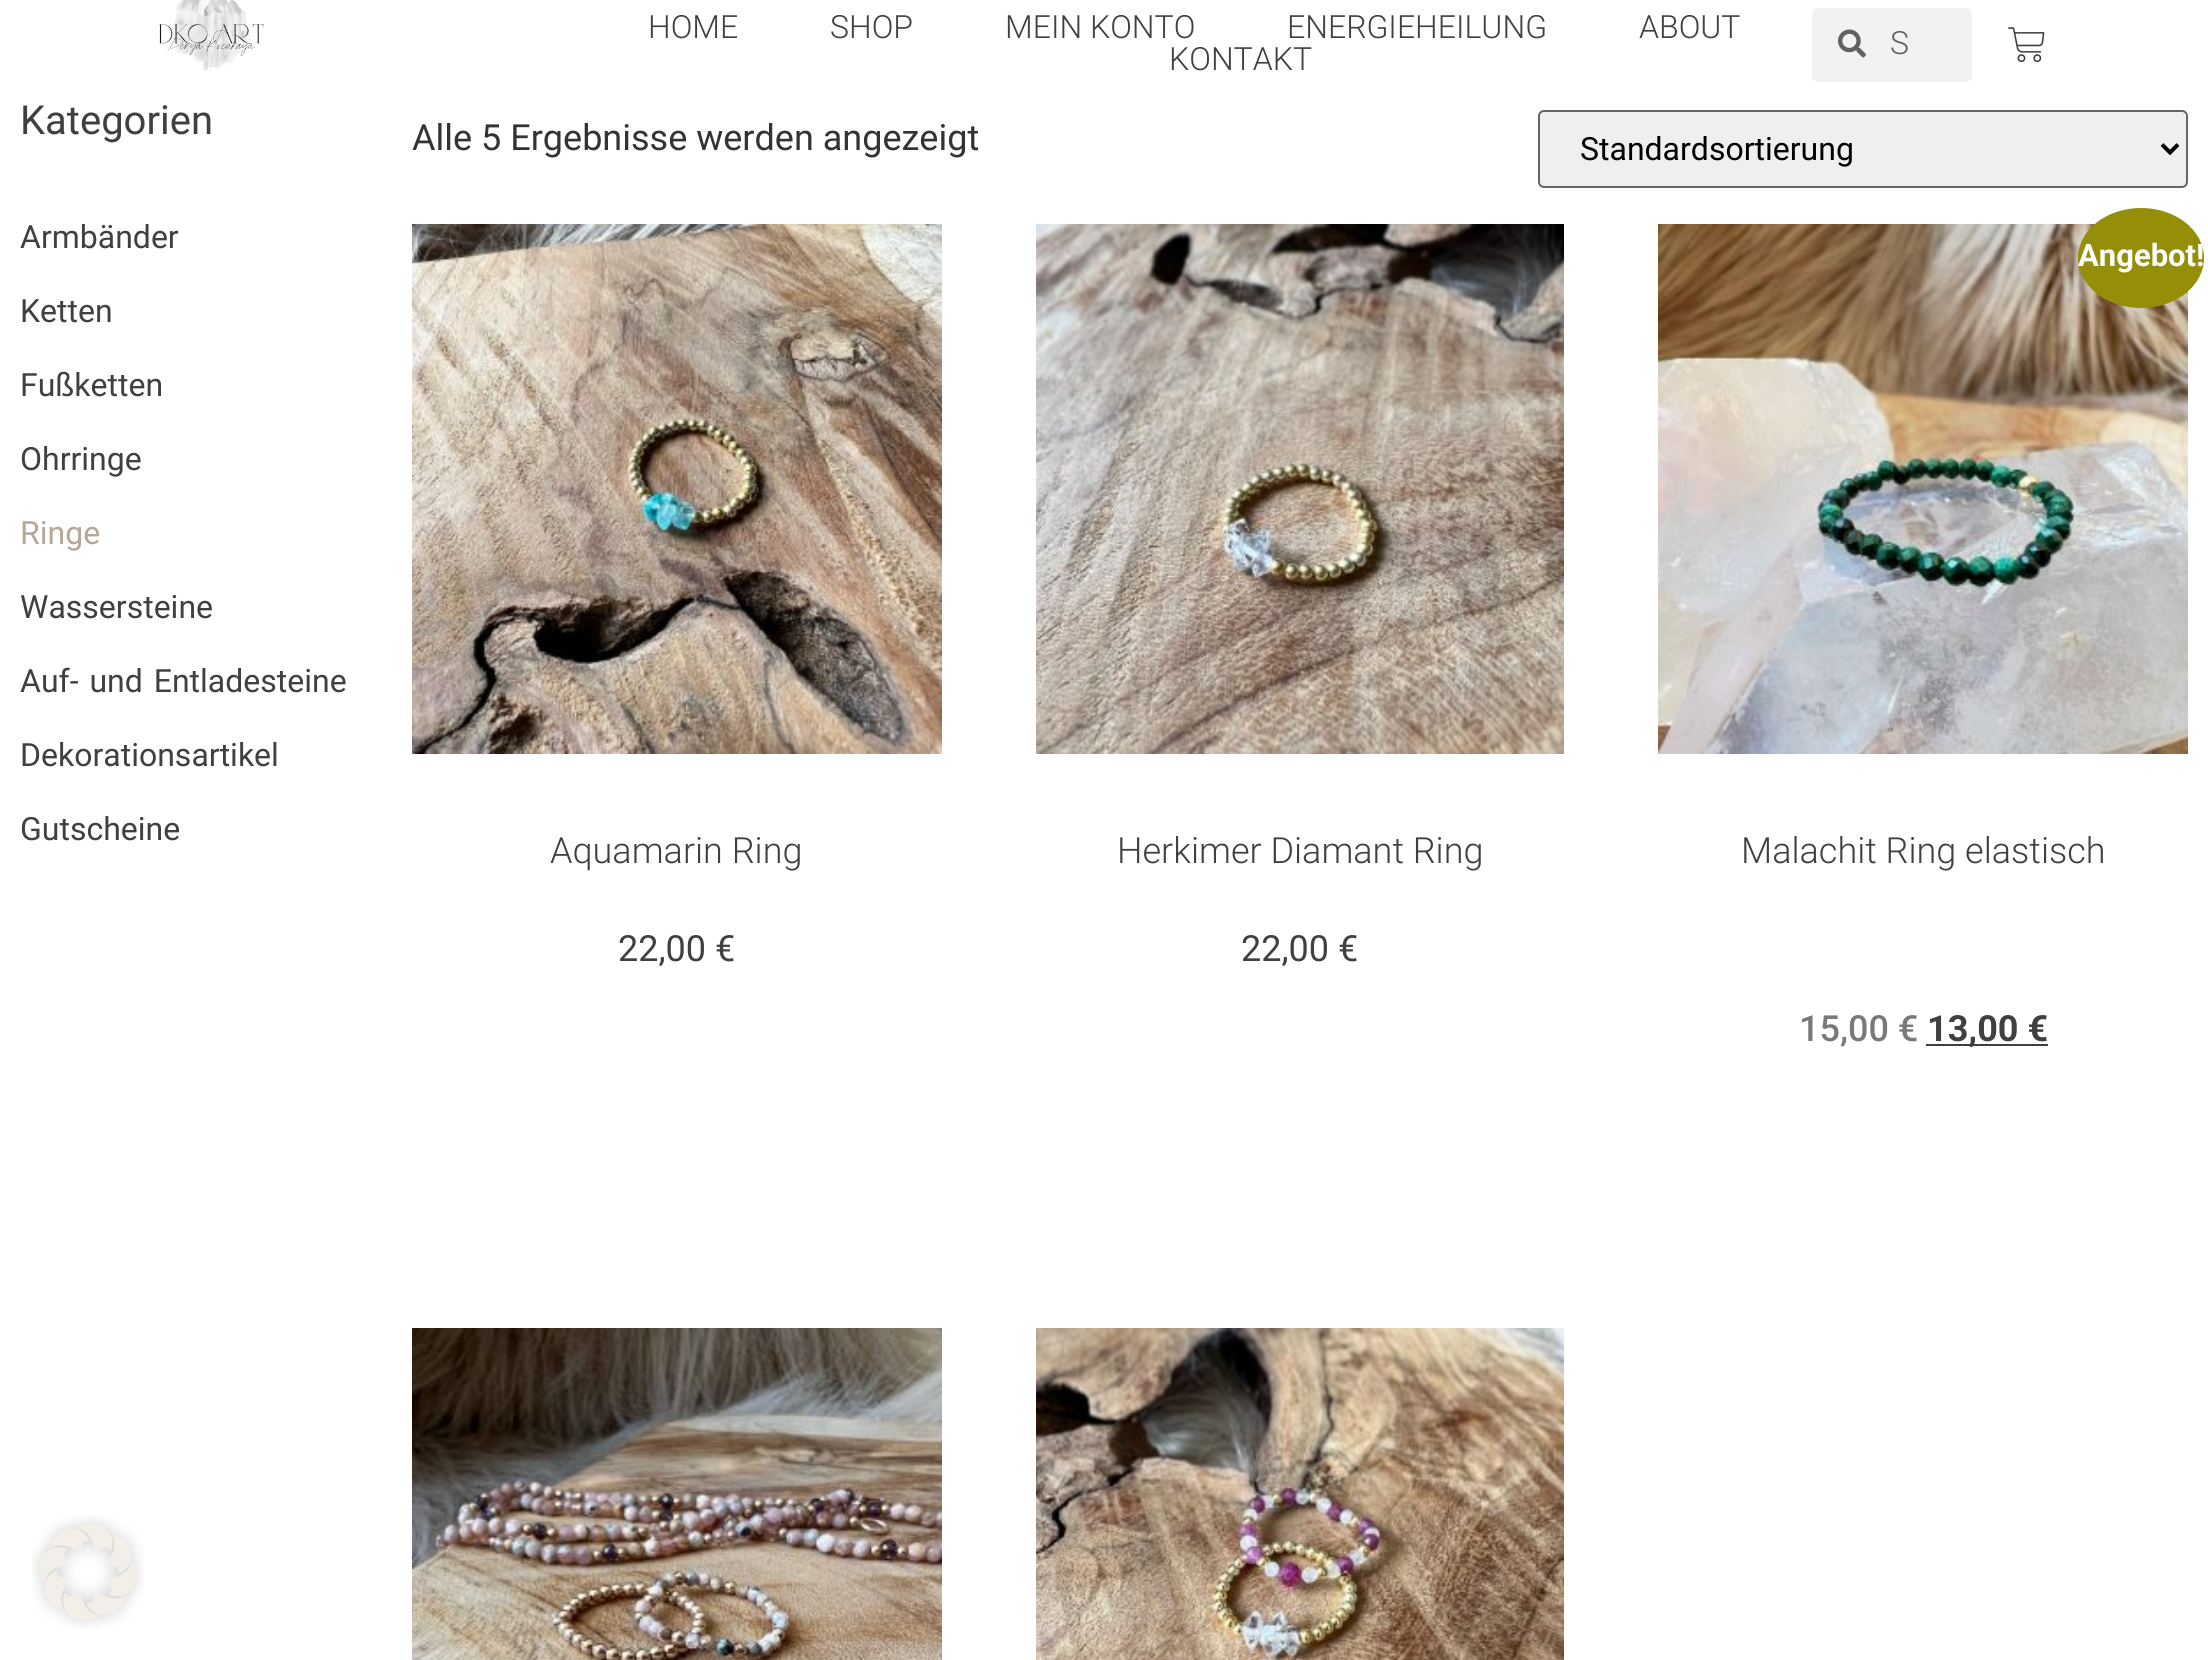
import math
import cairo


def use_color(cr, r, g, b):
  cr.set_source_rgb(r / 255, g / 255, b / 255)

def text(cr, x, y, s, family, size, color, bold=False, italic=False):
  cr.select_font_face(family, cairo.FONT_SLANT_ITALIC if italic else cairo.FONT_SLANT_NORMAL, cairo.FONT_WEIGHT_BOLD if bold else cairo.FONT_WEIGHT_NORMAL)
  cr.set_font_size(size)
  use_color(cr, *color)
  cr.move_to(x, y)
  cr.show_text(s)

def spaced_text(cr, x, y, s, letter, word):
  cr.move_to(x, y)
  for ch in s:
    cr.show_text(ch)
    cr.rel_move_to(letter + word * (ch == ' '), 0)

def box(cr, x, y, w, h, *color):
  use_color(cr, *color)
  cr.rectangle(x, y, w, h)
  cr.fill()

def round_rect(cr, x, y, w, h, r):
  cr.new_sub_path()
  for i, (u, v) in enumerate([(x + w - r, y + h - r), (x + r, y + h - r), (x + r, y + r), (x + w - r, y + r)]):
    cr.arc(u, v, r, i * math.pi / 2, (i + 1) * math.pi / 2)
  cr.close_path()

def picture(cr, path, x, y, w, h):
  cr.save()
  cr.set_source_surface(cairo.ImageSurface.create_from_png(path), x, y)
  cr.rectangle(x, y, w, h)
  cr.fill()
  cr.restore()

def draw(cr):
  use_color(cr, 255, 255, 255)
  cr.paint()
  picture(cr, "img_01.png", 159, 0, 105, 72)
  use_color(cr, 241, 242, 243)
  round_rect(cr, 1812, 8, 160, 74, 6)
  cr.fill()
  picture(cr, "img_02.png", 1838, 29, 28, 29)
  picture(cr, "img_03.png", 2008, 27, 37, 36)
  use_color(cr, 239, 239, 239)
  round_rect(cr, 1539, 111, 648, 76, 5)
  cr.fill_preserve()
  use_color(cr, 102, 102, 102)
  cr.stroke()
  cr.new_path()
  cr.move_to(2162, 144.5)
  cr.line_to(2170, 152.5)
  cr.line_to(2178, 144.5)
  use_color(cr, 0, 0, 0)
  cr.set_line_width(4)
  cr.stroke()
  picture(cr, "img_04.png", 412, 224, 530, 530)
  picture(cr, "img_05.png", 1036, 224, 528, 530)
  picture(cr, "img_06.png", 1658, 224, 530, 530)
  use_color(cr, 149, 142, 9)
  cr.new_path()
  cr.move_to(2141, 208)
  cr.curve_to(2176, 208, 2204, 230.5, 2204, 258)
  cr.curve_to(2204, 285.5, 2176, 308, 2141, 308)
  cr.curve_to(2106, 308, 2078, 285.5, 2078, 258)
  cr.curve_to(2078, 230.5, 2106, 208, 2141, 208)
  cr.close_path()
  cr.fill()
  box(cr, 1926, 1044, 122, 2, 65, 64, 63)
  picture(cr, "img_07.png", 412, 1328, 530, 332)
  picture(cr, "img_08.png", 1036, 1328, 528, 332)
  picture(cr, "img_09.png", 32, 1516, 112, 112)
  text(cr, 648, 38, "HOME", "Roboto Light", 32, (65, 64, 63))
  text(cr, 830, 38, "SHOP", "Roboto Light", 32, (65, 64, 63))
  text(cr, 1005, 38, "MEIN KONTO", "Roboto Light", 32, (65, 64, 63))
  text(cr, 1287, 38, "ENERGIEHEILUNG", "Roboto Light", 32, (65, 64, 63))
  text(cr, 1639, 38, "ABOUT", "Roboto Light", 32, (65, 64, 63))
  text(cr, 1169, 70, "KONTAKT", "Roboto Light", 32, (65, 64, 63))
  text(cr, 1890, 54, "S", "Roboto Light", 32, (96, 97, 97))
  text(cr, 20, 134, "Kategorien", "Roboto", 40, (65, 64, 63))
  text(cr, 20, 248, "Armbänder", "Roboto", 32, (65, 64, 63))
  text(cr, 20, 322, "Ketten", "Roboto", 32, (65, 64, 63))
  text(cr, 20, 396, "Fußketten", "Roboto", 32, (65, 64, 63))
  text(cr, 20, 470, "Ohrringe", "Roboto", 32, (65, 64, 63))
  text(cr, 20, 544, "Ringe", "Roboto", 32, (184, 166, 150))
  text(cr, 20, 618, "Wassersteine", "Roboto", 32, (65, 64, 63))
  spaced_text(cr, 20, 692, "Auf- und Entladesteine", 0, 3)
  text(cr, 20, 766, "Dekorationsartikel", "Roboto", 32, (65, 64, 63))
  text(cr, 20, 840, "Gutscheine", "Roboto", 32, (65, 64, 63))
  text(cr, 412, 150, "Alle 5 Ergebnisse werden angezeigt", "Roboto", 36, (51, 51, 51))
  text(cr, 1580, 160, "Standardsortierung", "Roboto", 32, (0, 0, 0))
  text(cr, 550, 863, "Aquamarin Ring", "Roboto Light", 36, (65, 64, 63))
  text(cr, 618, 961, "22,00 €", "Roboto", 36, (65, 64, 63))
  text(cr, 1117, 863, "Herkimer Diamant Ring", "Roboto Light", 36, (65, 64, 63))
  text(cr, 1241, 961, "22,00 €", "Roboto", 36, (65, 64, 63))
  text(cr, 2078, 266, "Angebot!", "Roboto", 31, (255, 255, 255), bold=True)
  text(cr, 1741, 863, "Malachit Ring elastisch", "Roboto Light", 36, (65, 64, 63))
  text(cr, 1799, 1041, "15,00 €", "Roboto Medium", 36, (122, 121, 121))
  text(cr, 1927, 1041, "13,00 €", "Roboto", 36, (65, 64, 63), bold=True)


surface = cairo.ImageSurface(cairo.FORMAT_RGB24, 2208, 1660)
cr = cairo.Context(surface)
options = cairo.FontOptions()
options.set_hint_metrics(cairo.HINT_METRICS_OFF)
options.set_hint_style(cairo.HINT_STYLE_NONE)
cr.set_font_options(options)
cr.set_miter_limit(4)
draw(cr)
surface.write_to_png("out.png")
